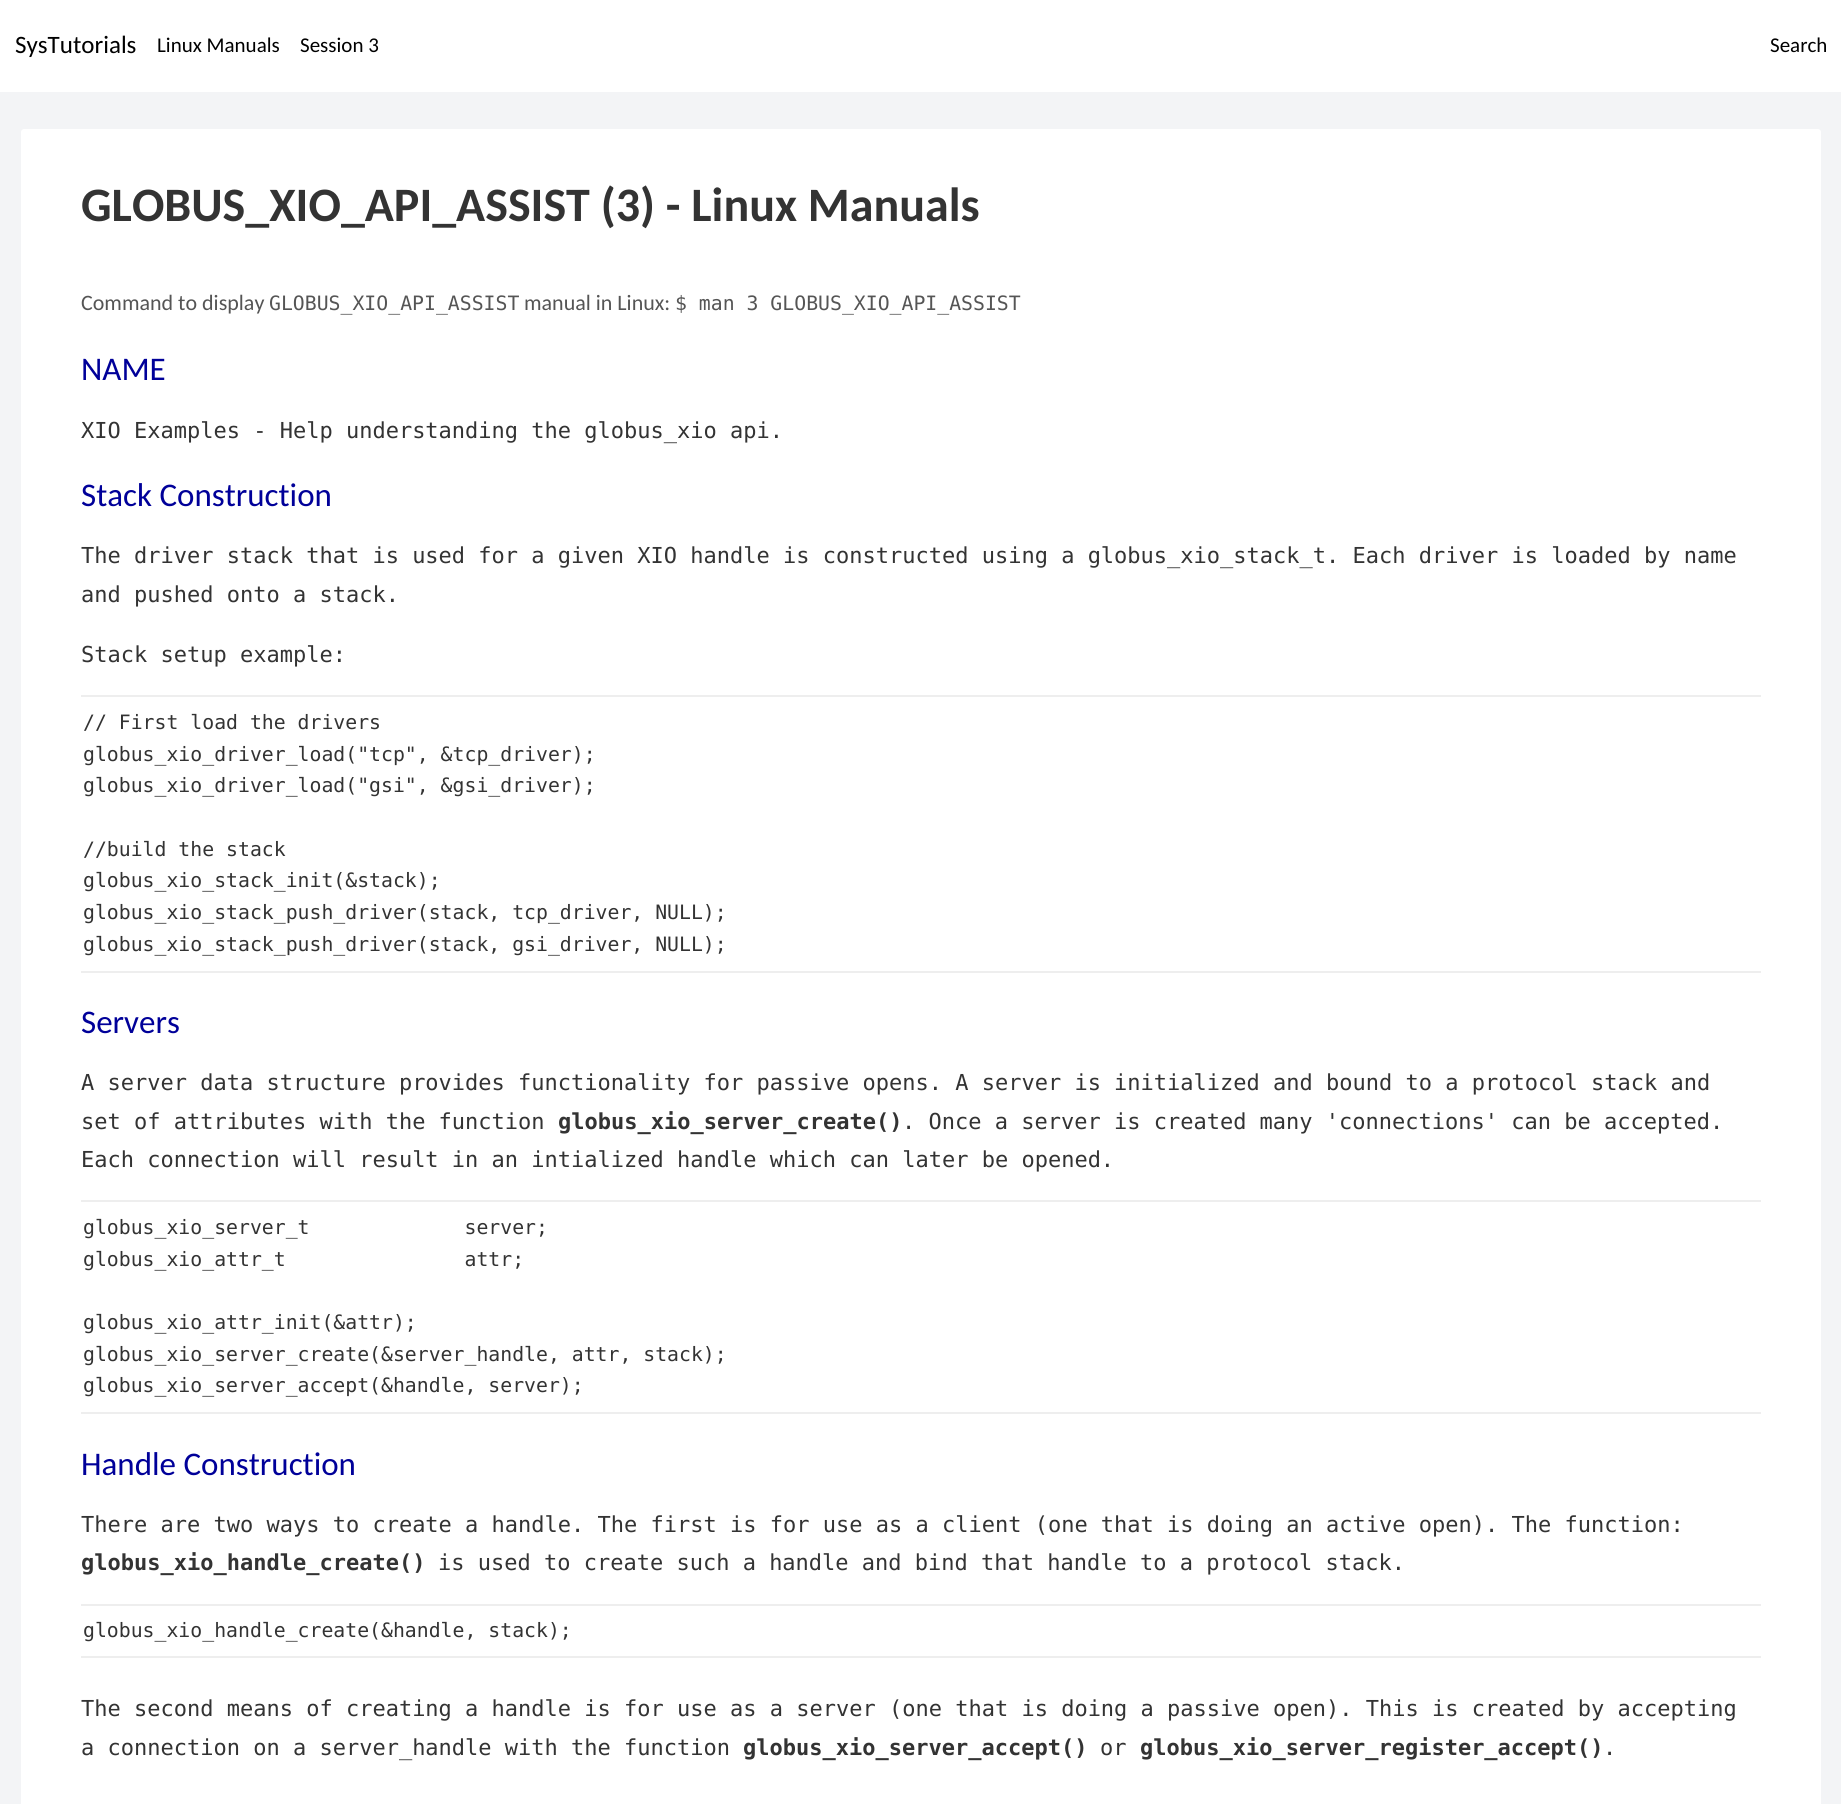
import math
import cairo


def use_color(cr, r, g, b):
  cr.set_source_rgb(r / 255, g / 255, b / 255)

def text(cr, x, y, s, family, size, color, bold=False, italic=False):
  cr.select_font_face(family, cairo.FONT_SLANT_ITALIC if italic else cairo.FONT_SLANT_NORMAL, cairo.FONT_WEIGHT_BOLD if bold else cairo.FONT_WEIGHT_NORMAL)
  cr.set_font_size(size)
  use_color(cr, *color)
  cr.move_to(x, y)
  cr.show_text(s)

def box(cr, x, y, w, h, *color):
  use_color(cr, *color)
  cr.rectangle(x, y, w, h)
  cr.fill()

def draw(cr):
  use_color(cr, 243, 244, 246)
  cr.paint()
  box(cr, 0, 0, 1841, 92, 255, 255, 255)
  cr.new_path()
  cr.move_to(24, 129)
  cr.line_to(1818, 129)
  cr.curve_to(1819.5, 129, 1821, 130.5, 1821, 132)
  cr.line_to(1821, 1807)
  cr.line_to(21, 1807)
  cr.line_to(21, 132)
  cr.curve_to(21, 130.5, 22.5, 129, 24, 129)
  cr.close_path()
  cr.fill()
  box(cr, 81, 695, 1680, 2, 238, 238, 238)
  box(cr, 81, 971, 1680, 2, 238, 238, 238)
  box(cr, 81, 1200, 1680, 2, 238, 238, 238)
  box(cr, 81, 1412, 1680, 2, 238, 238, 238)
  box(cr, 81, 1604, 1680, 2, 238, 238, 238)
  box(cr, 81, 1656, 1680, 2, 238, 238, 238)
  text(cr, 15, 53, "SysTutorials", "Carlito", 25, (0, 0, 0))
  text(cr, 157, 52, "Linux Manuals", "Carlito", 21, (0, 0, 0))
  text(cr, 300, 52, "Session 3", "Carlito", 21, (0, 0, 0))
  text(cr, 1770, 52, "Search", "Carlito", 21, (0, 0, 0))
  text(cr, 81, 221, "GLOBUS_XIO_API_ASSIST (3) - Linux Manuals", "Carlito", 48, (51, 51, 51), bold=True)
  text(cr, 81, 310, "Command to display", "Carlito", 22, (85, 85, 85))
  text(cr, 269, 310, "GLOBUS_XIO_API_ASSIST", "DejaVu Sans Mono", 19.8, (85, 85, 85))
  text(cr, 524, 310, "manual in Linux:", "Carlito", 22, (85, 85, 85))
  text(cr, 675, 310, "$ man 3 GLOBUS_XIO_API_ASSIST", "DejaVu Sans Mono", 19.8, (85, 85, 85))
  text(cr, 81, 380, "NAME", "Carlito", 33, (0, 0, 153))
  text(cr, 81, 438, "XIO Examples - Help understanding the globus_xio api.", "DejaVu Sans Mono", 22, (51, 51, 51))
  text(cr, 81, 506, "Stack Construction", "Carlito", 33, (0, 0, 153))
  text(cr, 81, 563, "The driver stack that is used for a given XIO handle is constructed using a globus_xio_stack_t. Each driver is loaded by name", "DejaVu Sans Mono", 22, (51, 51, 51))
  text(cr, 81, 602, "and pushed onto a stack.", "DejaVu Sans Mono", 22, (51, 51, 51))
  text(cr, 81, 662, "Stack setup example:", "DejaVu Sans Mono", 22, (51, 51, 51))
  text(cr, 83, 729, "// First load the drivers", "DejaVu Sans Mono", 19.8, (51, 51, 51))
  text(cr, 83, 761, "globus_xio_driver_load(\"tcp\", &tcp_driver);", "DejaVu Sans Mono", 19.8, (51, 51, 51))
  text(cr, 83, 792, "globus_xio_driver_load(\"gsi\", &gsi_driver);", "DejaVu Sans Mono", 19.8, (51, 51, 51))
  text(cr, 83, 856, "//build the stack", "DejaVu Sans Mono", 19.8, (51, 51, 51))
  text(cr, 83, 887, "globus_xio_stack_init(&stack);", "DejaVu Sans Mono", 19.8, (51, 51, 51))
  text(cr, 83, 919, "globus_xio_stack_push_driver(stack, tcp_driver, NULL);", "DejaVu Sans Mono", 19.8, (51, 51, 51))
  text(cr, 83, 951, "globus_xio_stack_push_driver(stack, gsi_driver, NULL);", "DejaVu Sans Mono", 19.8, (51, 51, 51))
  text(cr, 81, 1033, "Servers", "Carlito", 33, (0, 0, 153))
  text(cr, 81, 1090, "A server data structure provides functionality for passive opens. A server is initialized and bound to a protocol stack and", "DejaVu Sans Mono", 22, (51, 51, 51))
  text(cr, 81, 1129, "set of attributes with the function", "DejaVu Sans Mono", 22, (51, 51, 51))
  text(cr, 558, 1129, "globus_xio_server_create()", "DejaVu Sans Mono", 22, (51, 51, 51), bold=True)
  text(cr, 902, 1129, ". Once a server is created many 'connections' can be accepted.", "DejaVu Sans Mono", 22, (51, 51, 51))
  text(cr, 81, 1167, "Each connection will result in an intialized handle which can later be opened.", "DejaVu Sans Mono", 22, (51, 51, 51))
  text(cr, 83, 1234, "globus_xio_server_t             server;", "DejaVu Sans Mono", 19.8, (51, 51, 51))
  text(cr, 83, 1266, "globus_xio_attr_t               attr;", "DejaVu Sans Mono", 19.8, (51, 51, 51))
  text(cr, 83, 1329, "globus_xio_attr_init(&attr);", "DejaVu Sans Mono", 19.8, (51, 51, 51))
  text(cr, 83, 1361, "globus_xio_server_create(&server_handle, attr, stack);", "DejaVu Sans Mono", 19.8, (51, 51, 51))
  text(cr, 83, 1392, "globus_xio_server_accept(&handle, server);", "DejaVu Sans Mono", 19.8, (51, 51, 51))
  text(cr, 81, 1475, "Handle Construction", "Carlito", 33, (0, 0, 153))
  text(cr, 81, 1532, "There are two ways to create a handle. The first is for use as a client (one that is doing an active open). The function:", "DejaVu Sans Mono", 22, (51, 51, 51))
  text(cr, 81, 1570, "globus_xio_handle_create()", "DejaVu Sans Mono", 22, (51, 51, 51), bold=True)
  text(cr, 438, 1570, "is used to create such a handle and bind that handle to a protocol stack.", "DejaVu Sans Mono", 22, (51, 51, 51))
  text(cr, 83, 1637, "globus_xio_handle_create(&handle, stack);", "DejaVu Sans Mono", 19.8, (51, 51, 51))
  text(cr, 81, 1716, "The second means of creating a handle is for use as a server (one that is doing a passive open). This is created by accepting", "DejaVu Sans Mono", 22, (51, 51, 51))
  text(cr, 81, 1755, "a connection on a server_handle with the function", "DejaVu Sans Mono", 22, (51, 51, 51))
  text(cr, 743, 1755, "globus_xio_server_accept()", "DejaVu Sans Mono", 22, (51, 51, 51), bold=True)
  text(cr, 1100, 1755, "or", "DejaVu Sans Mono", 22, (51, 51, 51))
  text(cr, 1140, 1755, "globus_xio_server_register_accept()", "DejaVu Sans Mono", 22, (51, 51, 51), bold=True)
  text(cr, 1603, 1755, ".", "DejaVu Sans Mono", 22, (51, 51, 51))


surface = cairo.ImageSurface(cairo.FORMAT_RGB24, 1841, 1804)
cr = cairo.Context(surface)
options = cairo.FontOptions()
options.set_hint_metrics(cairo.HINT_METRICS_OFF)
options.set_hint_style(cairo.HINT_STYLE_NONE)
cr.set_font_options(options)
cr.set_miter_limit(4)
draw(cr)
surface.write_to_png("out.png")
